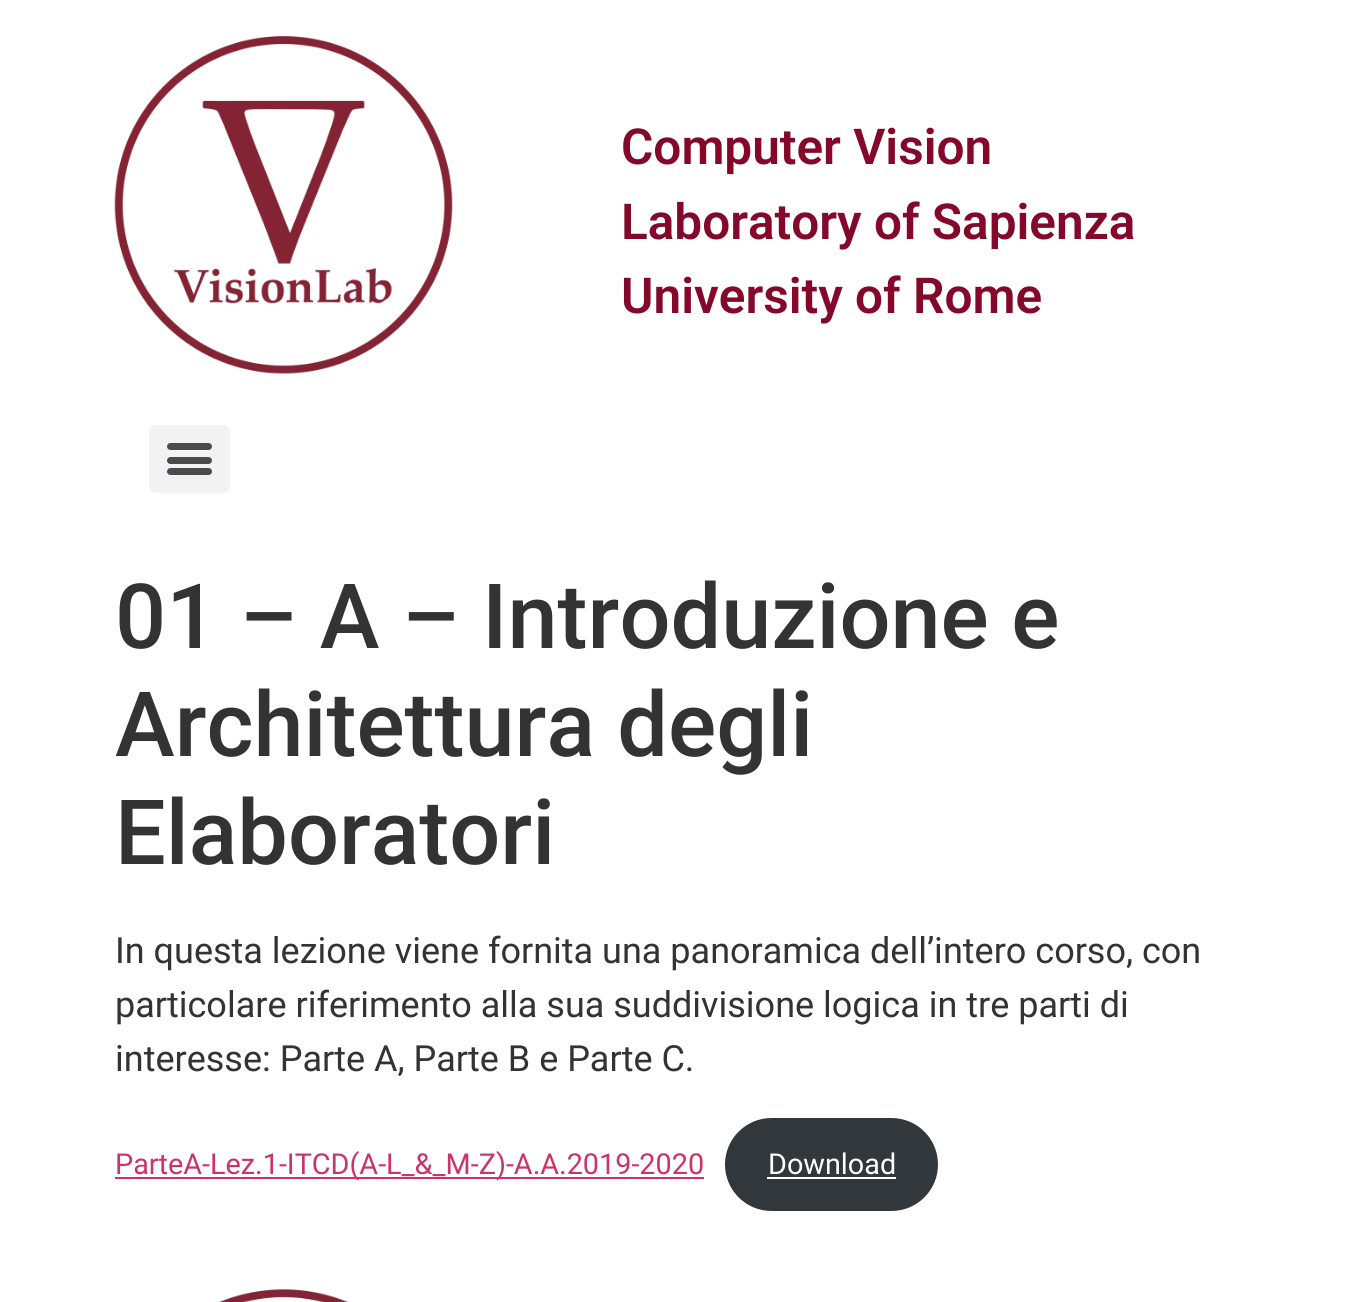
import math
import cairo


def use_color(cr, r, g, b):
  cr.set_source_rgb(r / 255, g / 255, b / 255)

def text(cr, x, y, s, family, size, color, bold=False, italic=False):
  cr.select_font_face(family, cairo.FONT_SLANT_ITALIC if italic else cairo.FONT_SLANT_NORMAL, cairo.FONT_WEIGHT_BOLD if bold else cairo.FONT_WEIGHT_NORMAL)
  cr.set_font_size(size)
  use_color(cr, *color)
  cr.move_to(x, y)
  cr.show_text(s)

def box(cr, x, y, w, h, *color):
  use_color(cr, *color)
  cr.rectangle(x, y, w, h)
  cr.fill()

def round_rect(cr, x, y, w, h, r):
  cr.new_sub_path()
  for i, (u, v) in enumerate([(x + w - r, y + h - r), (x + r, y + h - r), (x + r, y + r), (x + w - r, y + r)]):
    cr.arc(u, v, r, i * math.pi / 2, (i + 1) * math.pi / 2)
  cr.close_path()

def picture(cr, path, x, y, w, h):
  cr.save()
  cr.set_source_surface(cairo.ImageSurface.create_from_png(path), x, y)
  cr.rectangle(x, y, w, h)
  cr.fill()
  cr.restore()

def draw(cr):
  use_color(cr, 255, 255, 255)
  cr.paint()
  picture(cr, "img_01.png", 114, 36, 339, 338)
  use_color(cr, 242, 242, 242)
  round_rect(cr, 149, 425, 81, 68, 7)
  cr.fill()
  use_color(cr, 73, 76, 79)
  round_rect(cr, 167, 457, 45, 7, 3.5)
  cr.fill()
  round_rect(cr, 167, 443, 45, 7, 3.5)
  cr.fill()
  round_rect(cr, 167, 468, 45, 7, 3.5)
  cr.fill()
  box(cr, 115, 1177, 589, 2, 204, 51, 102)
  use_color(cr, 50, 55, 60)
  round_rect(cr, 725, 1118, 213, 93, 46.5)
  cr.fill()
  box(cr, 767, 1177, 129, 2, 255, 255, 255)
  picture(cr, "img_02.png", 218, 1289, 131, 13)
  text(cr, 621, 164, "Computer Vision", "Roboto SemiBold", 49.5, (132, 8, 42))
  text(cr, 621, 239, "Laboratory of Sapienza", "Roboto SemiBold", 49.5, (132, 8, 42))
  text(cr, 621, 313, "University of Rome", "Roboto SemiBold", 49.5, (132, 8, 42))
  text(cr, 115, 648, "01 – A – Introduzione e", "Roboto Medium", 90, (51, 51, 51))
  text(cr, 115, 756, "Architettura degli", "Roboto Medium", 90, (51, 51, 51))
  text(cr, 115, 864, "Elaboratori", "Roboto Medium", 90, (51, 51, 51))
  text(cr, 115, 963, "In questa lezione viene fornita una panoramica dell’intero corso, con", "Roboto", 36, (51, 51, 51))
  text(cr, 115, 1017, "particolare riferimento alla sua suddivisione logica in tre parti di", "Roboto", 36, (51, 51, 51))
  text(cr, 115, 1071, "interesse: Parte A, Parte B e Parte C.", "Roboto", 36, (51, 51, 51))
  text(cr, 115, 1174, "ParteA-Lez.1-ITCD(A-L_&_M-Z)-A.A.2019-2020", "Roboto", 28.8, (204, 51, 102))
  text(cr, 768, 1174, "Download", "Roboto", 28.8, (255, 255, 255))


surface = cairo.ImageSurface(cairo.FORMAT_RGB24, 1353, 1302)
cr = cairo.Context(surface)
options = cairo.FontOptions()
options.set_hint_metrics(cairo.HINT_METRICS_OFF)
options.set_hint_style(cairo.HINT_STYLE_NONE)
cr.set_font_options(options)
cr.set_miter_limit(4)
draw(cr)
surface.write_to_png("out.png")
